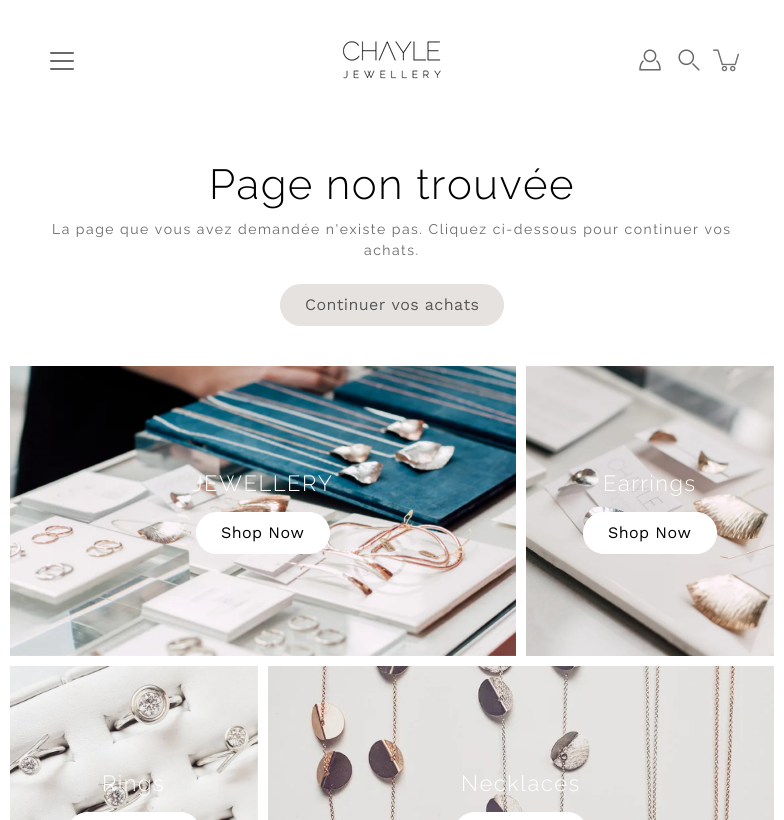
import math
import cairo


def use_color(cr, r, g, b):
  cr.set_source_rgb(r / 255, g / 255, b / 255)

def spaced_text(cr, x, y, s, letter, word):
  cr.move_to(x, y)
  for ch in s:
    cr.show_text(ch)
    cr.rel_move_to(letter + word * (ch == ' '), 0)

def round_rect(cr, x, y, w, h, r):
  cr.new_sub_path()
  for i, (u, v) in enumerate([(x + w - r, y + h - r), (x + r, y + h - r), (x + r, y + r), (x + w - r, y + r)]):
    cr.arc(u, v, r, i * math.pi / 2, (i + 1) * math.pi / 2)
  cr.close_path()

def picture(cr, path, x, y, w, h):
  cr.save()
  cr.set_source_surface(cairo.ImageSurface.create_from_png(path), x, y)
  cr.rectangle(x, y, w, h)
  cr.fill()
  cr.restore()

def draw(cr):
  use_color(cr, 255, 255, 255)
  cr.paint()
  picture(cr, "img_01.png", 342, 41, 99, 38)
  use_color(cr, 104, 104, 104)
  round_rect(cr, 50, 60, 24, 2, 1)
  cr.fill()
  round_rect(cr, 50, 52, 24, 2, 1)
  cr.fill()
  round_rect(cr, 50, 68, 24, 2, 1)
  cr.fill()
  picture(cr, "img_02.png", 639, 49, 22, 22)
  picture(cr, "img_03.png", 678, 49, 22, 22)
  picture(cr, "img_04.png", 713, 49, 26, 23)
  use_color(cr, 230, 226, 223)
  round_rect(cr, 280.5, 284.5, 223, 41, 20.5)
  cr.fill_preserve()
  cr.set_line_width(1)
  cr.stroke()
  picture(cr, "img_05.png", 10, 366, 506, 290)
  use_color(cr, 255, 255, 255)
  round_rect(cr, 196.5, 512.5, 133, 41, 20.5)
  cr.fill_preserve()
  cr.stroke()
  picture(cr, "img_06.png", 526, 366, 248, 290)
  round_rect(cr, 583.5, 512.5, 133, 41, 20.5)
  cr.fill_preserve()
  cr.stroke()
  picture(cr, "img_07.png", 10, 666, 248, 154)
  round_rect(cr, 67.5, 812.5, 133, 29, 20.5)
  cr.fill_preserve()
  cr.stroke()
  picture(cr, "img_08.png", 268, 666, 506, 154)
  round_rect(cr, 454.5, 812.5, 133, 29, 20.5)
  cr.fill_preserve()
  cr.stroke()
  cr.select_font_face("Raleway Light")
  cr.set_font_size(42)
  use_color(cr, 0, 0, 0)
  spaced_text(cr, 209, 199, "Page non trouvée", 1.5, 0)
  cr.select_font_face("Raleway")
  cr.set_font_size(14)
  use_color(cr, 104, 104, 104)
  spaced_text(cr, 52, 234, "La page que vous avez demandée n'existe pas. Cliquez ci-dessous pour continuer vos", 1.5, 0)
  spaced_text(cr, 364, 255, "achats.", 1.5, 0)
  cr.select_font_face("Work Sans")
  cr.set_font_size(16)
  use_color(cr, 88, 88, 88)
  spaced_text(cr, 305, 310, "Continuer vos achats", 0.4, 0)
  cr.select_font_face("Raleway Light")
  cr.set_font_size(22)
  use_color(cr, 255, 255, 255)
  spaced_text(cr, 192, 491, "JEWELLERY", 1.5, 0)
  cr.select_font_face("Work Sans")
  cr.set_font_size(16)
  use_color(cr, 0, 0, 0)
  spaced_text(cr, 221, 538, "Shop Now", 0.4, 0)
  cr.select_font_face("Raleway Light")
  cr.set_font_size(22)
  use_color(cr, 255, 255, 255)
  spaced_text(cr, 603, 491, "Earrings", 1.5, 0)
  cr.select_font_face("Work Sans")
  cr.set_font_size(16)
  use_color(cr, 0, 0, 0)
  spaced_text(cr, 608, 538, "Shop Now", 0.4, 0)
  cr.select_font_face("Raleway Light")
  cr.set_font_size(22)
  use_color(cr, 255, 255, 255)
  spaced_text(cr, 102, 791, "Rings", 1.5, 0)
  spaced_text(cr, 461, 791, "Necklaces", 1.5, 0)


surface = cairo.ImageSurface(cairo.FORMAT_RGB24, 784, 820)
cr = cairo.Context(surface)
options = cairo.FontOptions()
options.set_hint_metrics(cairo.HINT_METRICS_OFF)
options.set_hint_style(cairo.HINT_STYLE_NONE)
cr.set_font_options(options)
cr.set_miter_limit(4)
draw(cr)
surface.write_to_png("out.png")
